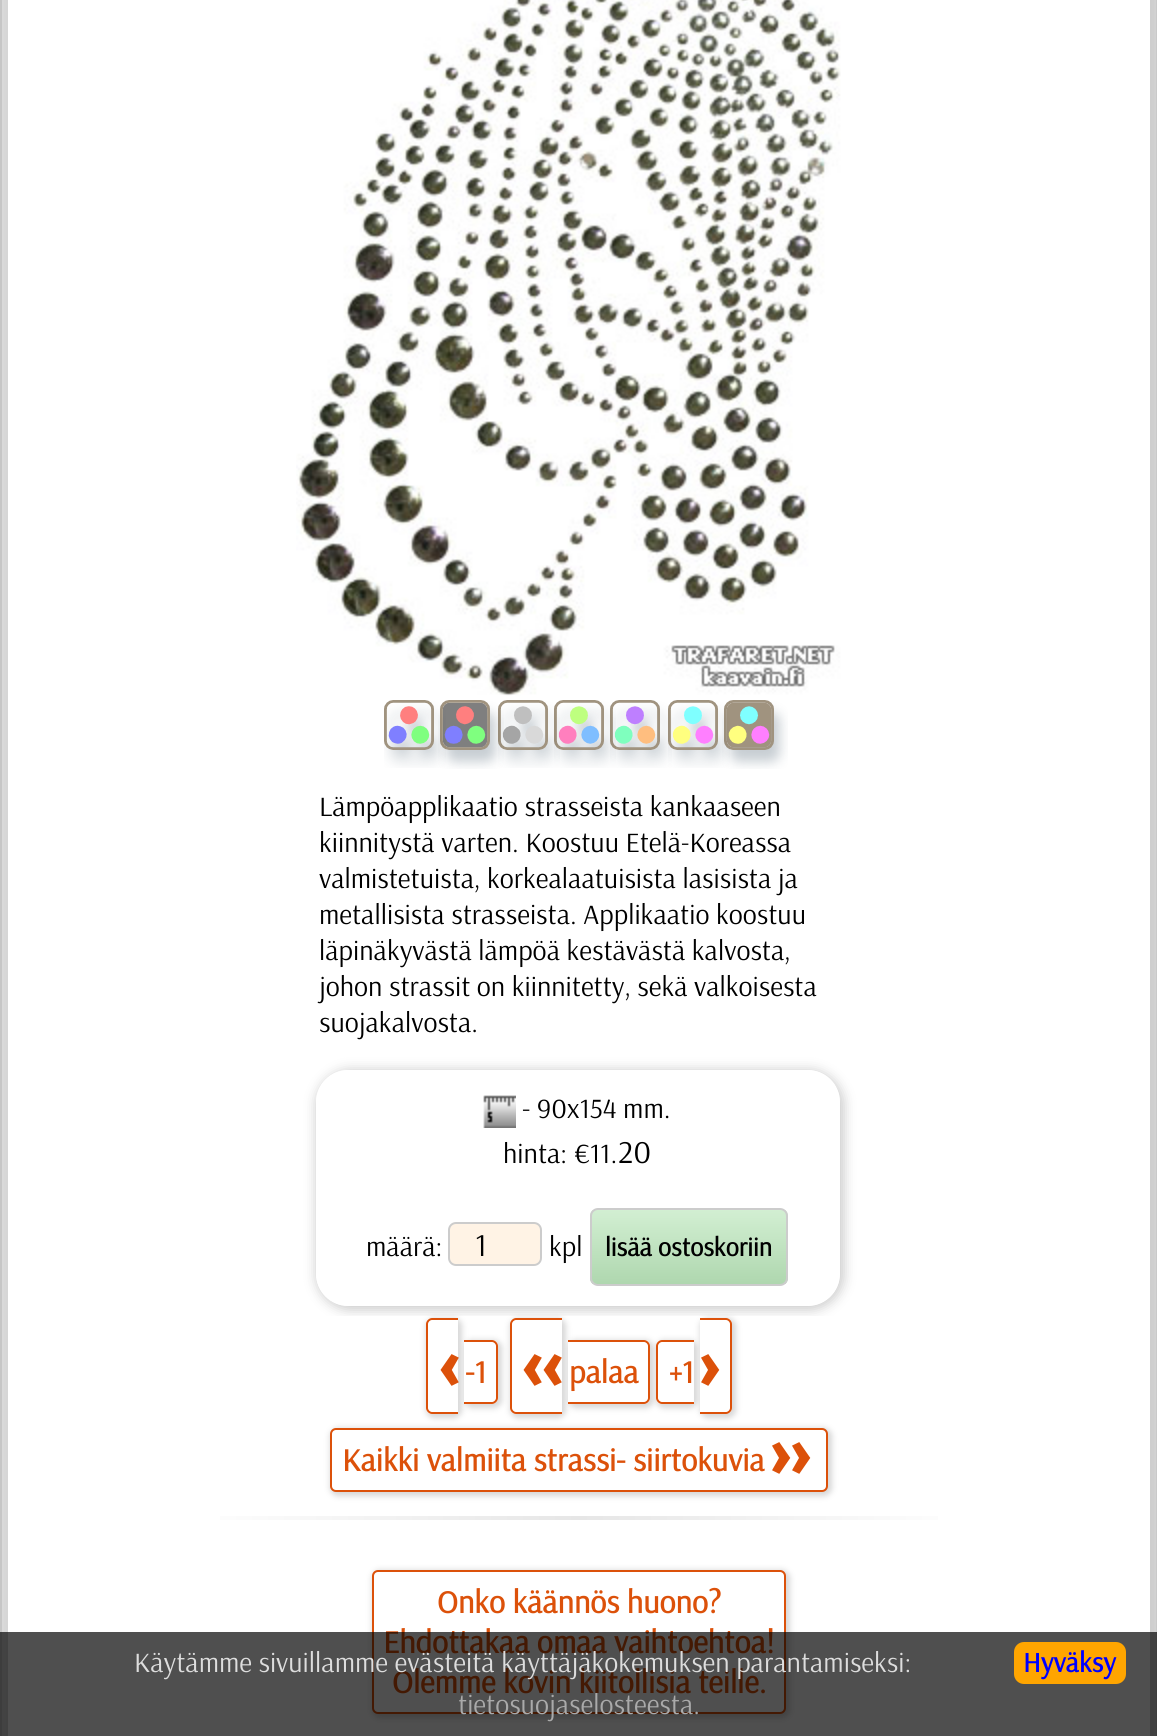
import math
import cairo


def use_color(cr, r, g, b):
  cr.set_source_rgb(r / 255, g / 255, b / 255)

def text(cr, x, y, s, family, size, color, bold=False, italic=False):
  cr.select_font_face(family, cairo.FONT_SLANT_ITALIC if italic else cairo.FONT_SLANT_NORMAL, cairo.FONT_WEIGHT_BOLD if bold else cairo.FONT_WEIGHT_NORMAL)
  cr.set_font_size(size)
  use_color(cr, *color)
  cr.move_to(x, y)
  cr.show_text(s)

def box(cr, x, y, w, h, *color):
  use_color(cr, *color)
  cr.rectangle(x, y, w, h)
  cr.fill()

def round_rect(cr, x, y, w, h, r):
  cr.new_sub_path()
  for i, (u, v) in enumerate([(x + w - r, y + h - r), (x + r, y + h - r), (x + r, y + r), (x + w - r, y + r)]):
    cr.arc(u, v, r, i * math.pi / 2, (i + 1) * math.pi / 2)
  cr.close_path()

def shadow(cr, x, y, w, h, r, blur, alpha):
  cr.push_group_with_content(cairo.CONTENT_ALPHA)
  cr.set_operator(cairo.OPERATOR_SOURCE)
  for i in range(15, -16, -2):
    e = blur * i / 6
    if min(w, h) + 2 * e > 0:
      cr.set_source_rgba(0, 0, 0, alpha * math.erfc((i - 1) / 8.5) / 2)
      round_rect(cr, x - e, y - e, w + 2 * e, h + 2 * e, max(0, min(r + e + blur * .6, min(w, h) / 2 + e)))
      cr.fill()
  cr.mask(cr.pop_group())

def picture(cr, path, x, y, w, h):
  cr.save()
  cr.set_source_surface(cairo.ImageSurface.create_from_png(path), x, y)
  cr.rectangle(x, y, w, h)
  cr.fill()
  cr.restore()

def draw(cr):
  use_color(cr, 217, 217, 217)
  cr.paint()
  box(cr, 1156, 0, 1, 1736, 198, 198, 198)
  box(cr, 0, 0, 2, 1736, 198, 198, 198)
  use_color(cr, 204, 204, 204)
  shadow(cr, 10, -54, 1146, 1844, 42, 4, 1)
  box(cr, 8, 0, 1142, 1736, 255, 255, 255)
  picture(cr, "img_01.png", 296, 0, 545, 696)
  picture(cr, "img_02.png", 384, 700, 62, 68)
  picture(cr, "img_03.png", 438, 700, 66, 69)
  picture(cr, "img_04.png", 498, 700, 62, 68)
  picture(cr, "img_05.png", 554, 700, 62, 68)
  picture(cr, "img_06.png", 610, 700, 62, 68)
  picture(cr, "img_07.png", 668, 700, 62, 68)
  picture(cr, "img_08.png", 722, 700, 66, 69)
  use_color(cr, 215, 215, 215)
  shadow(cr, 426, 1318, 36, 100, 8, 3, 1)
  use_color(cr, 255, 255, 255)
  cr.new_path()
  cr.move_to(432, 1318)
  cr.line_to(458, 1318)
  cr.line_to(458, 1414)
  cr.line_to(432, 1414)
  cr.curve_to(428.5, 1414, 426, 1411.5, 426, 1408)
  cr.line_to(426, 1324)
  cr.curve_to(426, 1320.5, 428.5, 1318, 432, 1318)
  cr.close_path()
  cr.fill()
  use_color(cr, 220, 81, 10)
  cr.set_fill_rule(cairo.FILL_RULE_EVEN_ODD)
  cr.new_path()
  cr.move_to(432, 1318)
  cr.line_to(458, 1318)
  cr.line_to(458, 1414)
  cr.line_to(432, 1414)
  cr.curve_to(429, 1414, 426, 1411, 426, 1408)
  cr.line_to(426, 1324)
  cr.curve_to(426, 1321, 429, 1318, 432, 1318)
  cr.close_path()
  cr.move_to(432, 1320)
  cr.line_to(458, 1320)
  cr.line_to(458, 1412)
  cr.line_to(432, 1412)
  cr.curve_to(430, 1412, 428, 1410, 428, 1408)
  cr.line_to(428, 1324)
  cr.curve_to(428, 1322, 430, 1320, 432, 1320)
  cr.close_path()
  cr.fill()
  use_color(cr, 215, 215, 215)
  shadow(cr, 464, 1340, 38, 68, 8, 3, 1)
  shadow(cr, 510, 1318, 56, 100, 8, 3, 1)
  use_color(cr, 255, 255, 255)
  cr.new_path()
  cr.move_to(516, 1318)
  cr.line_to(562, 1318)
  cr.line_to(562, 1414)
  cr.line_to(516, 1414)
  cr.curve_to(512.5, 1414, 510, 1411.5, 510, 1408)
  cr.line_to(510, 1324)
  cr.curve_to(510, 1320.5, 512.5, 1318, 516, 1318)
  cr.close_path()
  cr.fill()
  use_color(cr, 220, 81, 10)
  cr.new_path()
  cr.move_to(516, 1318)
  cr.line_to(562, 1318)
  cr.line_to(562, 1414)
  cr.line_to(516, 1414)
  cr.curve_to(513, 1414, 510, 1411, 510, 1408)
  cr.line_to(510, 1324)
  cr.curve_to(510, 1321, 513, 1318, 516, 1318)
  cr.close_path()
  cr.move_to(516, 1320)
  cr.line_to(562, 1320)
  cr.line_to(562, 1412)
  cr.line_to(516, 1412)
  cr.curve_to(514, 1412, 512, 1410, 512, 1408)
  cr.line_to(512, 1324)
  cr.curve_to(512, 1322, 514, 1320, 516, 1320)
  cr.close_path()
  cr.fill()
  use_color(cr, 215, 215, 215)
  shadow(cr, 568, 1340, 86, 68, 8, 3, 1)
  use_color(cr, 255, 255, 255)
  cr.new_path()
  cr.move_to(568, 1340)
  cr.line_to(644, 1340)
  cr.curve_to(647.5, 1340, 650, 1342.5, 650, 1346)
  cr.line_to(650, 1398)
  cr.curve_to(650, 1401.5, 647.5, 1404, 644, 1404)
  cr.line_to(568, 1404)
  cr.close_path()
  cr.fill()
  use_color(cr, 220, 81, 10)
  cr.new_path()
  cr.move_to(568, 1340)
  cr.line_to(644, 1340)
  cr.curve_to(647, 1340, 650, 1343, 650, 1346)
  cr.line_to(650, 1398)
  cr.curve_to(650, 1401, 647, 1404, 644, 1404)
  cr.line_to(568, 1404)
  cr.close_path()
  cr.move_to(568, 1342)
  cr.line_to(644, 1342)
  cr.curve_to(646, 1342, 648, 1344, 648, 1346)
  cr.line_to(648, 1398)
  cr.curve_to(648, 1400, 646, 1402, 644, 1402)
  cr.line_to(568, 1402)
  cr.close_path()
  cr.fill()
  use_color(cr, 215, 215, 215)
  shadow(cr, 656, 1340, 42, 68, 8, 3, 1)
  use_color(cr, 255, 255, 255)
  cr.new_path()
  cr.move_to(662, 1340)
  cr.line_to(694, 1340)
  cr.line_to(694, 1404)
  cr.line_to(662, 1404)
  cr.curve_to(658.5, 1404, 656, 1401.5, 656, 1398)
  cr.line_to(656, 1346)
  cr.curve_to(656, 1342.5, 658.5, 1340, 662, 1340)
  cr.close_path()
  cr.fill()
  use_color(cr, 220, 81, 10)
  cr.new_path()
  cr.move_to(662, 1340)
  cr.line_to(694, 1340)
  cr.line_to(694, 1404)
  cr.line_to(662, 1404)
  cr.curve_to(659, 1404, 656, 1401, 656, 1398)
  cr.line_to(656, 1346)
  cr.curve_to(656, 1343, 659, 1340, 662, 1340)
  cr.close_path()
  cr.move_to(662, 1342)
  cr.line_to(694, 1342)
  cr.line_to(694, 1402)
  cr.line_to(662, 1402)
  cr.curve_to(660, 1402, 658, 1400, 658, 1398)
  cr.line_to(658, 1346)
  cr.curve_to(658, 1344, 660, 1342, 662, 1342)
  cr.close_path()
  cr.fill()
  use_color(cr, 215, 215, 215)
  shadow(cr, 700, 1318, 36, 100, 8, 3, 1)
  use_color(cr, 255, 255, 255)
  cr.new_path()
  cr.move_to(700, 1318)
  cr.line_to(726, 1318)
  cr.curve_to(729.5, 1318, 732, 1320.5, 732, 1324)
  cr.line_to(732, 1408)
  cr.curve_to(732, 1411.5, 729.5, 1414, 726, 1414)
  cr.line_to(700, 1414)
  cr.close_path()
  cr.fill()
  use_color(cr, 220, 81, 10)
  cr.new_path()
  cr.move_to(700, 1318)
  cr.line_to(726, 1318)
  cr.curve_to(729, 1318, 732, 1321, 732, 1324)
  cr.line_to(732, 1408)
  cr.curve_to(732, 1411, 729, 1414, 726, 1414)
  cr.line_to(700, 1414)
  cr.close_path()
  cr.move_to(700, 1320)
  cr.line_to(726, 1320)
  cr.curve_to(728, 1320, 730, 1322, 730, 1324)
  cr.line_to(730, 1408)
  cr.curve_to(730, 1410, 728, 1412, 726, 1412)
  cr.line_to(700, 1412)
  cr.close_path()
  cr.fill()
  cr.save()
  cr.set_fill_rule(cairo.FILL_RULE_WINDING)
  cr.rectangle(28, 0, 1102, 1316)
  cr.clip()
  cr.set_fill_rule(cairo.FILL_RULE_EVEN_ODD)
  cr.new_path()
  cr.move_to(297, 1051)
  cr.line_to(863, 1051)
  cr.line_to(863, 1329)
  cr.line_to(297, 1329)
  cr.close_path()
  cr.move_to(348, 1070)
  cr.line_to(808, 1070)
  cr.curve_to(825.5, 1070, 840, 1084.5, 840, 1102)
  cr.line_to(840, 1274)
  cr.curve_to(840, 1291.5, 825.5, 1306, 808, 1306)
  cr.line_to(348, 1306)
  cr.curve_to(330.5, 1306, 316, 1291.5, 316, 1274)
  cr.line_to(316, 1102)
  cr.curve_to(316, 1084.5, 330.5, 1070, 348, 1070)
  cr.close_path()
  cr.clip()
  use_color(cr, 204, 204, 204)
  shadow(cr, 316, 1070, 528, 240, 34, 6, 1)
  cr.restore()
  picture(cr, "img_09.png", 483, 1095, 33, 33)
  use_color(cr, 255, 243, 229)
  round_rect(cr, 449, 1223, 92, 42, 7)
  cr.fill_preserve()
  use_color(cr, 204, 204, 204)
  cr.stroke()
  cr.save()
  cr.set_fill_rule(cairo.FILL_RULE_WINDING)
  round_rect(cr, 590, 1208, 198, 78, 8)
  cr.clip()
  gradient = cairo.LinearGradient(689, 1210, 689, 1284)
  gradient.add_color_stop_rgba(0, 0.824, 0.937, 0.824, 1)
  gradient.add_color_stop_rgba(1, 0.686, 0.843, 0.686, 1)
  cr.set_source(gradient)
  cr.rectangle(590, 1210, 198, 74)
  cr.fill()
  cr.restore()
  round_rect(cr, 591, 1209, 196, 76, 7)
  cr.stroke()
  use_color(cr, 255, 255, 255)
  cr.new_path()
  cr.move_to(464, 1340)
  cr.line_to(492, 1340)
  cr.curve_to(495.5, 1340, 498, 1342.5, 498, 1346)
  cr.line_to(498, 1398)
  cr.curve_to(498, 1401.5, 495.5, 1404, 492, 1404)
  cr.line_to(464, 1404)
  cr.close_path()
  cr.fill()
  use_color(cr, 220, 81, 10)
  cr.new_path()
  cr.move_to(464, 1340)
  cr.line_to(492, 1340)
  cr.curve_to(495, 1340, 498, 1343, 498, 1346)
  cr.line_to(498, 1398)
  cr.curve_to(498, 1401, 495, 1404, 492, 1404)
  cr.line_to(464, 1404)
  cr.close_path()
  cr.move_to(464, 1342)
  cr.line_to(492, 1342)
  cr.curve_to(494, 1342, 496, 1344, 496, 1346)
  cr.line_to(496, 1398)
  cr.curve_to(496, 1400, 494, 1402, 492, 1402)
  cr.line_to(464, 1402)
  cr.close_path()
  cr.fill()
  use_color(cr, 215, 215, 215)
  shadow(cr, 330, 1428, 502, 68, 8, 3, 1)
  use_color(cr, 255, 255, 255)
  round_rect(cr, 331, 1429, 496, 62, 5)
  cr.fill_preserve()
  use_color(cr, 220, 81, 10)
  cr.stroke()
  gradient = cairo.LinearGradient(180, 1518, 978, 1518)
  gradient.add_color_stop_rgba(0, 1, 1, 1, 1)
  gradient.add_color_stop_rgba(0.5, 0.902, 0.902, 0.902, 1)
  gradient.add_color_stop_rgba(1, 1, 1, 1, 1)
  cr.set_source(gradient)
  cr.rectangle(220, 1516, 718, 4)
  cr.fill()
  use_color(cr, 215, 215, 215)
  shadow(cr, 372, 1570, 418, 148, 8, 3, 1)
  use_color(cr, 255, 255, 255)
  round_rect(cr, 373, 1571, 412, 142, 5)
  cr.fill_preserve()
  use_color(cr, 220, 81, 10)
  cr.stroke()
  text(cr, 319, 816, "Lämpöapplikaatio strasseista kankaaseen", "Arsenal", 28, (0, 0, 0))
  text(cr, 319, 852, "kiinnitystä varten. Koostuu Etelä-Koreassa", "Arsenal", 28, (0, 0, 0))
  text(cr, 319, 888, "valmistetuista, korkealaatuisista lasisista ja", "Arsenal", 28, (0, 0, 0))
  text(cr, 319, 924, "metallisista strasseista. Applikaatio koostuu", "Arsenal", 28, (0, 0, 0))
  text(cr, 319, 960, "läpinäkyvästä lämpöä kestävästä kalvosta,", "Arsenal", 28, (0, 0, 0))
  text(cr, 319, 996, "johon strassit on kiinnitetty, sekä valkoisesta", "Arsenal", 28, (0, 0, 0))
  text(cr, 319, 1032, "suojakalvosta.", "Arsenal", 28, (0, 0, 0))
  text(cr, 522, 1118, "- 90x154 mm.", "Arsenal", 28, (0, 0, 0))
  text(cr, 503, 1163, "hinta: €11.", "Arsenal", 28, (0, 0, 0))
  text(cr, 618, 1163, "20", "Arsenal", 32, (0, 0, 0))
  text(cr, 366, 1256, "määrä:", "Arsenal", 28, (0, 0, 0))
  text(cr, 475, 1256, "1", "Arsenal", 32, (0, 0, 0))
  text(cr, 549, 1256, "kpl", "Arsenal", 28, (0, 0, 0))
  text(cr, 605, 1256, "lisää ostoskoriin", "Arsenal", 26, (0, 0, 0), bold=True)
  text(cr, 439, 1389, "‹", "Ubuntu", 64, (220, 81, 10), bold=True)
  text(cr, 465, 1383, "-1", "Arsenal", 32, (220, 81, 10), bold=True)
  text(cr, 522, 1389, "‹‹", "Ubuntu", 64, (220, 81, 10), bold=True)
  text(cr, 569, 1383, "palaa", "Arsenal", 32, (220, 81, 10), bold=True)
  text(cr, 669, 1383, "+1", "Arsenal", 32, (220, 81, 10), bold=True)
  text(cr, 699, 1389, "›", "Ubuntu", 64, (220, 81, 10), bold=True)
  text(cr, 342, 1471, "Kaikki valmiita strassi- siirtokuvia", "Arsenal", 32, (220, 81, 10), bold=True)
  text(cr, 770, 1477, "››", "Ubuntu", 64, (220, 81, 10), bold=True)
  text(cr, 437, 1613, "Onko käännös huono?", "Arsenal", 32, (220, 81, 10), bold=True)
  text(cr, 383, 1653, "Ehdottakaa omaa vaihtoehtoa!", "Arsenal", 32, (220, 81, 10), bold=True)
  text(cr, 392, 1693, "Olemme kovin kiitollisia teille.", "Arsenal", 32, (220, 81, 10), bold=True)
  cr.set_source_rgba(0, 0, 0, 0.69)
  cr.rectangle(0, 1632, 1157, 104)
  cr.fill()
  text(cr, 134, 1672, "Käytämme sivuillamme evästeitä käyttäjäkokemuksen parantamiseksi:", "Arsenal", 28, (221, 221, 221))
  use_color(cr, 255, 165, 0)
  round_rect(cr, 1014, 1642, 112, 42, 10)
  cr.fill()
  text(cr, 1023, 1672, "Hyväksy", "Arsenal", 28, (0, 0, 255), bold=True)
  text(cr, 458, 1714, "tietosuojaselosteesta.", "Arsenal", 28, (170, 170, 170))


surface = cairo.ImageSurface(cairo.FORMAT_RGB24, 1157, 1736)
cr = cairo.Context(surface)
options = cairo.FontOptions()
options.set_hint_metrics(cairo.HINT_METRICS_OFF)
options.set_hint_style(cairo.HINT_STYLE_NONE)
cr.set_font_options(options)
cr.set_miter_limit(4)
draw(cr)
surface.write_to_png("out.png")
